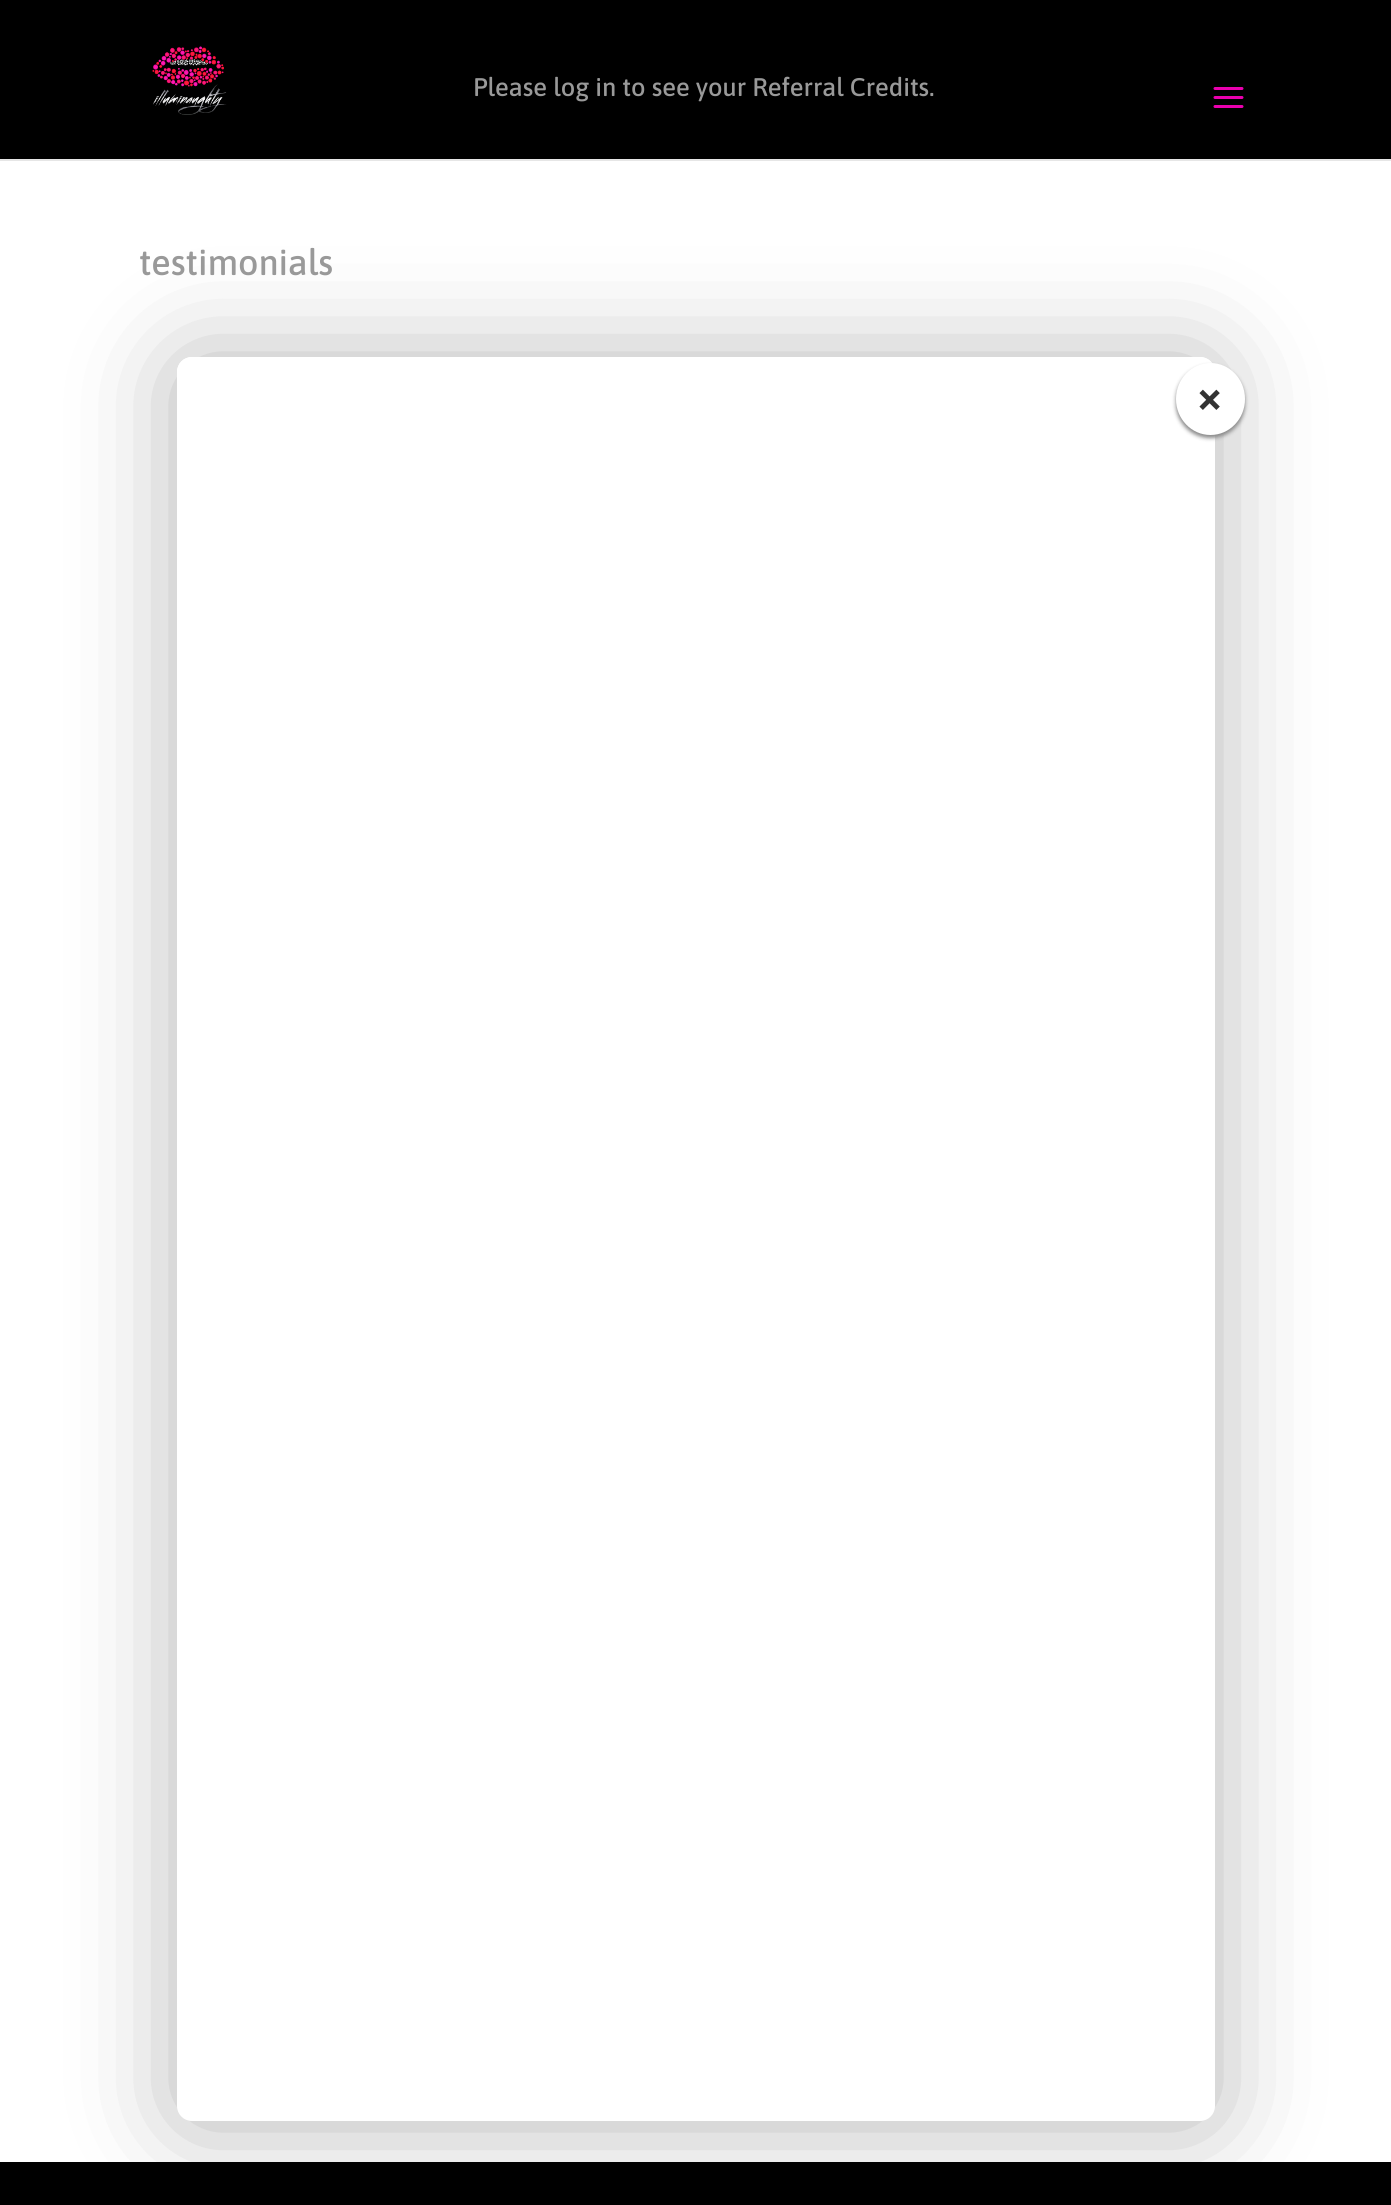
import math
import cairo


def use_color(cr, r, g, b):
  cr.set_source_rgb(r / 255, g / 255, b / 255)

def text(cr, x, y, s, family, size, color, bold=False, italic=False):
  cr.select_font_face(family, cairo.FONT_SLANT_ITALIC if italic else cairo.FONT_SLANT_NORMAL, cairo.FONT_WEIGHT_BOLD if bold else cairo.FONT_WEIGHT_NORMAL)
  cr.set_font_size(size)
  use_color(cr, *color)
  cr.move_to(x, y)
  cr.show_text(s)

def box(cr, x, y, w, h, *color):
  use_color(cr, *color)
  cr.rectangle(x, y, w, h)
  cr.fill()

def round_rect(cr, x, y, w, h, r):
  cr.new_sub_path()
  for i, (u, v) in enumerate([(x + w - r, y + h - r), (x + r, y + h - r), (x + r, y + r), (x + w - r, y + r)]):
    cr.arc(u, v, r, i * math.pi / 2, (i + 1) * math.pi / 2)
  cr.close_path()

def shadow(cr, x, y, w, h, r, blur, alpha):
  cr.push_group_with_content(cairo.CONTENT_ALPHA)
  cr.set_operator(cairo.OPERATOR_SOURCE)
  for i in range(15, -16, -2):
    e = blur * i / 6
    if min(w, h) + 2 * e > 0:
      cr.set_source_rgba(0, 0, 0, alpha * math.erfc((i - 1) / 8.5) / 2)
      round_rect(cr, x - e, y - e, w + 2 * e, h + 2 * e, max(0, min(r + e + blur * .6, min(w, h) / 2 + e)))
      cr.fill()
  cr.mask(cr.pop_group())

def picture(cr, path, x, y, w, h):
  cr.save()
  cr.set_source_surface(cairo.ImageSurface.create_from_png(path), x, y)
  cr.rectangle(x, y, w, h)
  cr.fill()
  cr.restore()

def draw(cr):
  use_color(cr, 0, 0, 0)
  cr.paint()
  box(cr, 0, 159, 1391, 2, 230, 230, 230)
  picture(cr, "img_01.png", 152, 46, 75, 69)
  picture(cr, "img_02.png", 1213, 87, 31, 21)
  box(cr, 0, 161, 1391, 2001, 255, 255, 255)
  use_color(cr, 0, 0, 0)
  shadow(cr, 177, 360, 1038, 1764, 15, 52.5, 0.3)
  use_color(cr, 255, 255, 255)
  round_rect(cr, 177, 357, 1038, 1764, 15)
  cr.fill()
  cr.new_path()
  cr.move_to(192, 357)
  cr.line_to(1200, 357)
  cr.curve_to(1208.5, 357, 1215, 363.5, 1215, 372)
  cr.line_to(1215, 2088)
  cr.line_to(177, 2088)
  cr.line_to(177, 372)
  cr.curve_to(177, 363.5, 183.5, 357, 192, 357)
  cr.close_path()
  cr.fill()
  use_color(cr, 136, 136, 136)
  shadow(cr, 1176, 366, 69, 72, 34.5, 2, 1)
  use_color(cr, 255, 255, 255)
  cr.new_path()
  cr.move_to(1210.5, 363)
  cr.curve_to(1229.5, 363, 1245, 379, 1245, 399)
  cr.curve_to(1245, 419, 1229.5, 435, 1210.5, 435)
  cr.curve_to(1191.5, 435, 1176, 419, 1176, 399)
  cr.curve_to(1176, 379, 1191.5, 363, 1210.5, 363)
  cr.close_path()
  cr.fill()
  text(cr, 473, 96, "Please log in to see your Referral Credits.", "Asap Medium", 25.5, (153, 153, 153))
  text(cr, 139, 275, "testimonials", "Asap Medium", 36, (153, 153, 153))
  text(cr, 1197, 413, "×", "DejaVu Sans Mono", 42, (51, 51, 51), bold=True)


surface = cairo.ImageSurface(cairo.FORMAT_RGB24, 1391, 2205)
cr = cairo.Context(surface)
options = cairo.FontOptions()
options.set_hint_metrics(cairo.HINT_METRICS_OFF)
options.set_hint_style(cairo.HINT_STYLE_NONE)
cr.set_font_options(options)
cr.set_miter_limit(4)
draw(cr)
surface.write_to_png("out.png")
